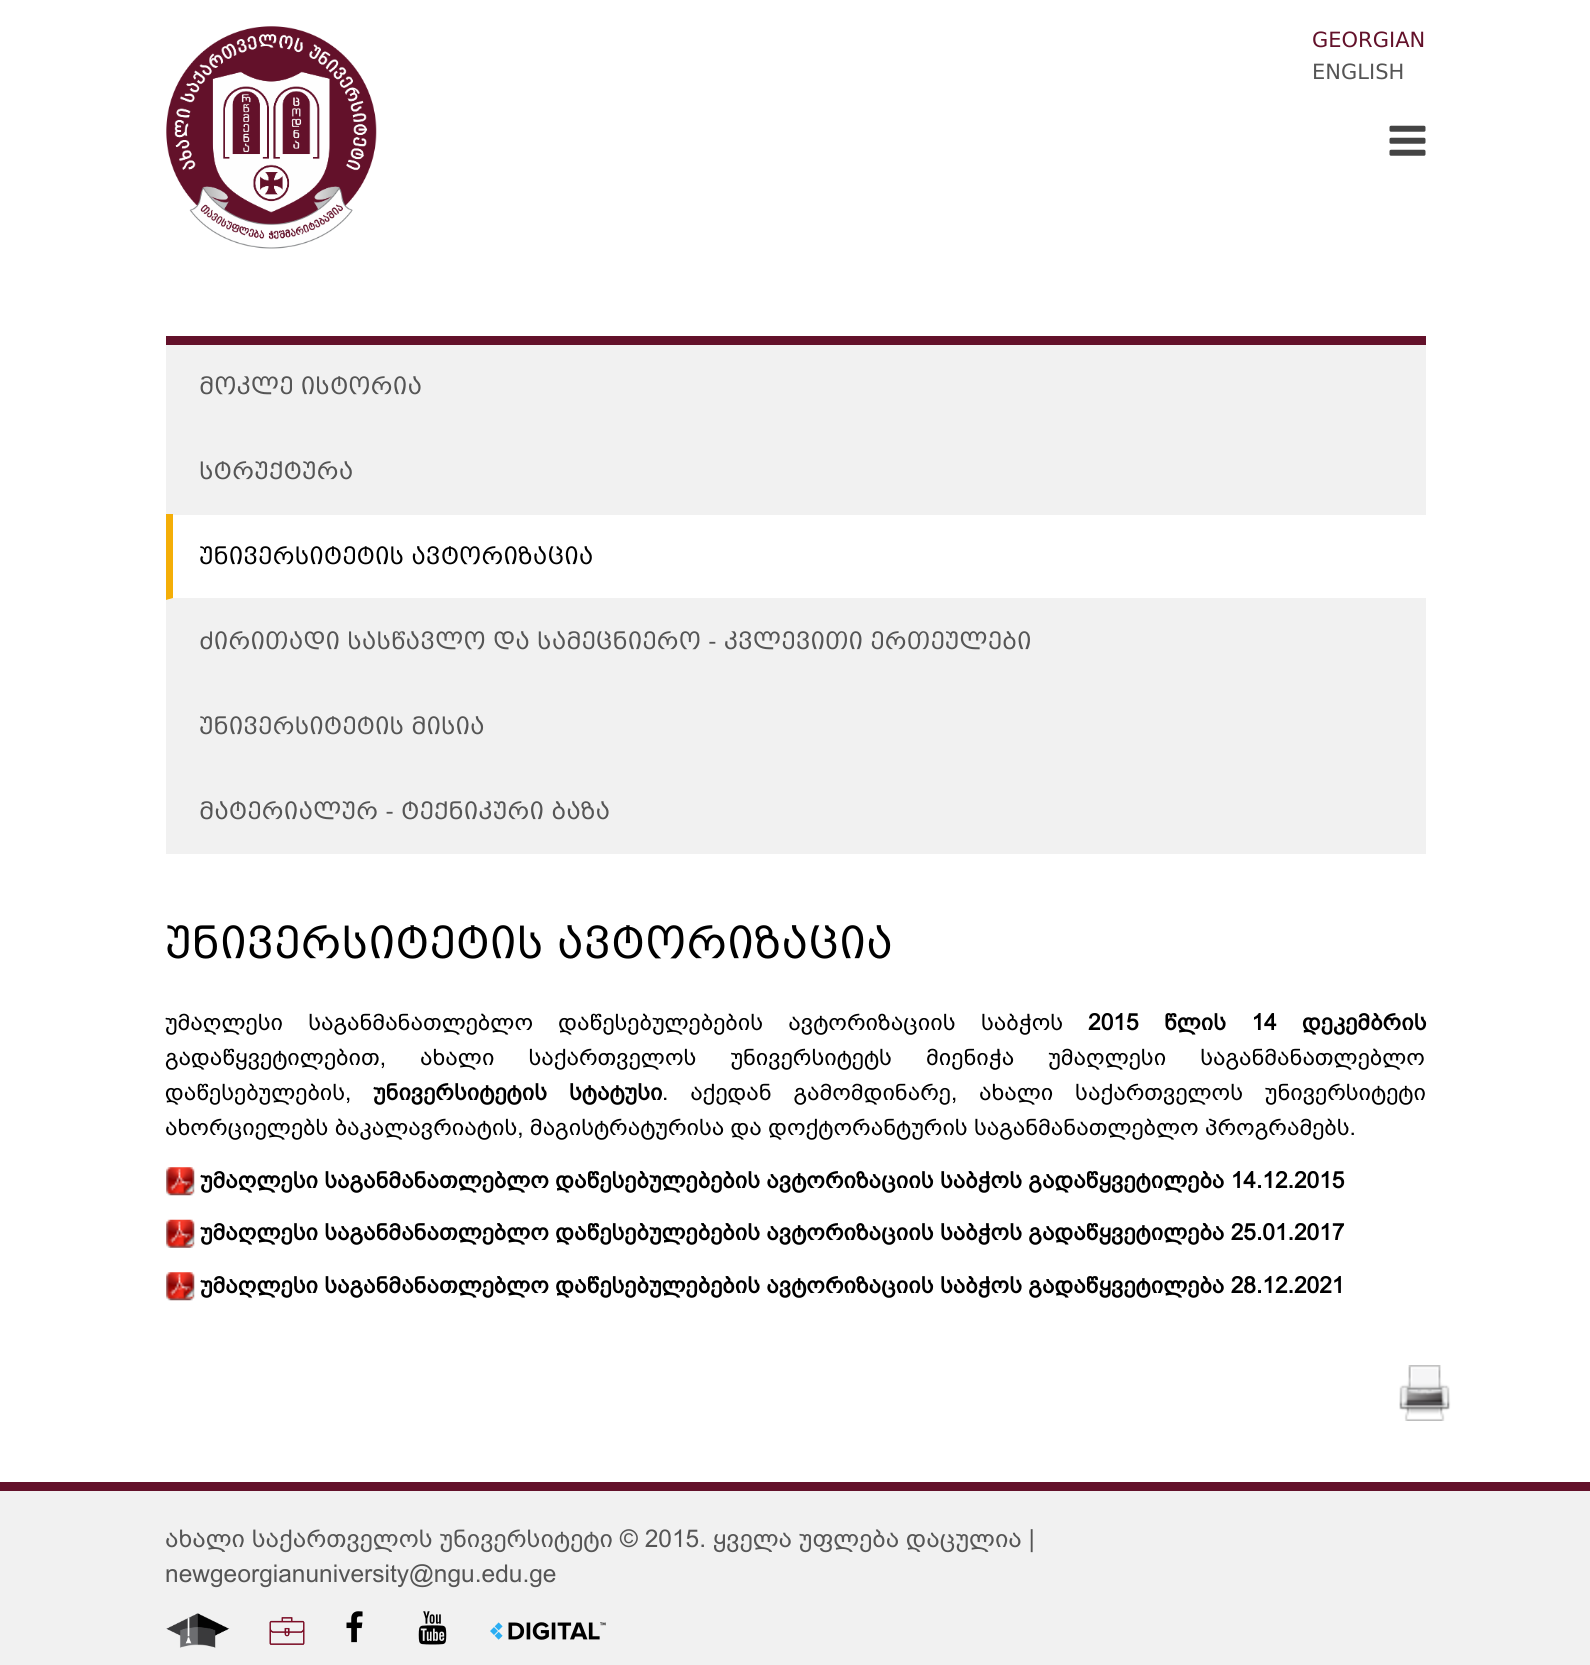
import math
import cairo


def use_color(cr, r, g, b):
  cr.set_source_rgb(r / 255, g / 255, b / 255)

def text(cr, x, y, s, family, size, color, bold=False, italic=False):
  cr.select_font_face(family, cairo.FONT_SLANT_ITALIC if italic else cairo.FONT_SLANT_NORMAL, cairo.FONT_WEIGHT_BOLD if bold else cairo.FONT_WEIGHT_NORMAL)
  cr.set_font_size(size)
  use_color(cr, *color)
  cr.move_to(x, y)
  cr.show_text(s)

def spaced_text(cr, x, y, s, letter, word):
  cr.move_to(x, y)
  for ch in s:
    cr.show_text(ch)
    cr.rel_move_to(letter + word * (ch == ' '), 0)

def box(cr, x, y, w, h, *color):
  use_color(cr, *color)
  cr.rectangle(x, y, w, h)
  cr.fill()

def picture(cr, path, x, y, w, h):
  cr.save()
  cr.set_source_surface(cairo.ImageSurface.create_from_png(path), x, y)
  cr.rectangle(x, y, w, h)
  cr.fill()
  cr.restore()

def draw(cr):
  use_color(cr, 255, 255, 255)
  cr.paint()
  picture(cr, "img_01.png", 166, 26, 211, 223)
  picture(cr, "img_02.png", 1389, 125, 37, 31)
  box(cr, 166, 336, 1260, 9, 99, 17, 42)
  box(cr, 166, 345, 1260, 170, 241, 241, 241)
  cr.new_path()
  cr.move_to(1426, 600)
  cr.line_to(166, 600)
  cr.line_to(173, 598)
  cr.line_to(1426, 598)
  cr.close_path()
  cr.fill()
  use_color(cr, 244, 174, 7)
  cr.new_path()
  cr.move_to(166, 600)
  cr.line_to(166, 514)
  cr.line_to(173, 514)
  cr.line_to(173, 598)
  cr.close_path()
  cr.fill()
  box(cr, 166, 600, 1260, 254, 241, 241, 241)
  picture(cr, "img_03.png", 166, 1167, 29, 29)
  picture(cr, "img_04.png", 166, 1219, 29, 29)
  picture(cr, "img_03.png", 166, 1272, 29, 29)
  picture(cr, "img_05.png", 1399, 1365, 52, 56)
  box(cr, 0, 1482, 1590, 9, 99, 17, 42)
  box(cr, 0, 1491, 1590, 174, 241, 241, 241)
  picture(cr, "img_06.png", 166, 1613, 64, 35)
  picture(cr, "img_07.png", 269, 1617, 36, 28)
  picture(cr, "img_08.png", 346, 1611, 17, 32)
  picture(cr, "img_09.png", 418, 1611, 29, 34)
  picture(cr, "img_10.png", 490, 1622, 116, 18)
  text(cr, 1312, 47, "GEORGIAN", "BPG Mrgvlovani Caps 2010", 21, (99, 17, 42))
  text(cr, 1312, 79, "ENGLISH", "BPG Mrgvlovani Caps 2010", 21, (85, 85, 85))
  text(cr, 199, 394, "მოკლე ისტორია", "BPG Mrgvlovani Caps 2010", 22.75, (85, 85, 85))
  text(cr, 199, 479, "სტრუქტურა", "BPG Mrgvlovani Caps 2010", 22.75, (85, 85, 85))
  text(cr, 199, 564, "უნივერსიტეტის ავტორიზაცია", "BPG Mrgvlovani Caps 2010", 22.75, (0, 0, 0))
  text(cr, 199, 649, "ძირითადი სასწავლო და სამეცნიერო - კვლევითი ერთეულები", "BPG Mrgvlovani Caps 2010", 22.75, (85, 85, 85))
  text(cr, 199, 734, "უნივერსიტეტის მისია", "BPG Mrgvlovani Caps 2010", 22.75, (85, 85, 85))
  text(cr, 199, 819, "მატერიალურ - ტექნიკური ბაზა", "BPG Mrgvlovani Caps 2010", 22.75, (85, 85, 85))
  text(cr, 165, 958, "უნივერსიტეტის ავტორიზაცია", "BPG Mrgvlovani Caps 2010", 42, (0, 0, 0))
  cr.select_font_face("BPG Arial")
  cr.set_font_size(22.75)
  spaced_text(cr, 165, 1030, "უმაღლესი საგანმანათლებლო დაწესებულებების ავტორიზაციის საბჭოს", 0, 19)
  cr.select_font_face("BPG Arial", cairo.FONT_SLANT_NORMAL, cairo.FONT_WEIGHT_BOLD)
  spaced_text(cr, 1088, 1030, "2015 წლის 14 დეკემბრის", 0, 19)
  cr.select_font_face("BPG Arial")
  spaced_text(cr, 165, 1065, "გადაწყვეტილებით, ახალი საქართველოს უნივერსიტეტს მიენიჭა უმაღლესი საგანმანათლებლო", 0, 27.75)
  text(cr, 165, 1100, "დაწესებულების,", "BPG Arial", 22.75, (0, 0, 0))
  text(cr, 373, 1100, "უნივერსიტეტის", "BPG Arial", 22.75, (0, 0, 0), bold=True)
  text(cr, 569, 1100, "სტატუსი", "BPG Arial", 22.75, (0, 0, 0), bold=True)
  cr.select_font_face("BPG Arial")
  spaced_text(cr, 662, 1100, ". აქედან გამომდინარე, ახალი საქართველოს უნივერსიტეტი", 0, 15.5)
  text(cr, 165, 1135, "ახორციელებს ბაკალავრიატის, მაგისტრატურისა და დოქტორანტურის საგანმანათლებლო პროგრამებს.", "BPG Arial", 22.75, (0, 0, 0))
  text(cr, 200, 1188, "უმაღლესი საგანმანათლებლო დაწესებულებების ავტორიზაციის საბჭოს გადაწყვეტილება 14.12.2015", "BPG Arial", 22.75, (0, 0, 0), bold=True)
  text(cr, 200, 1240, "უმაღლესი საგანმანათლებლო დაწესებულებების ავტორიზაციის საბჭოს გადაწყვეტილება 25.01.2017", "BPG Arial", 22.75, (0, 0, 0), bold=True)
  text(cr, 200, 1293, "უმაღლესი საგანმანათლებლო დაწესებულებების ავტორიზაციის საბჭოს გადაწყვეტილება 28.12.2021", "BPG Arial", 22.75, (0, 0, 0), bold=True)
  text(cr, 165, 1547, "ახალი საქართველოს უნივერსიტეტი © 2015. ყველა უფლება დაცულია |", "BPG Arial", 24.5, (85, 85, 85))
  text(cr, 165, 1582, "newgeorgianuniversity@ngu.edu.ge", "BPG Arial", 24.5, (85, 85, 85))


surface = cairo.ImageSurface(cairo.FORMAT_RGB24, 1590, 1665)
cr = cairo.Context(surface)
options = cairo.FontOptions()
options.set_hint_metrics(cairo.HINT_METRICS_OFF)
options.set_hint_style(cairo.HINT_STYLE_NONE)
cr.set_font_options(options)
cr.set_miter_limit(4)
draw(cr)
surface.write_to_png("out.png")
